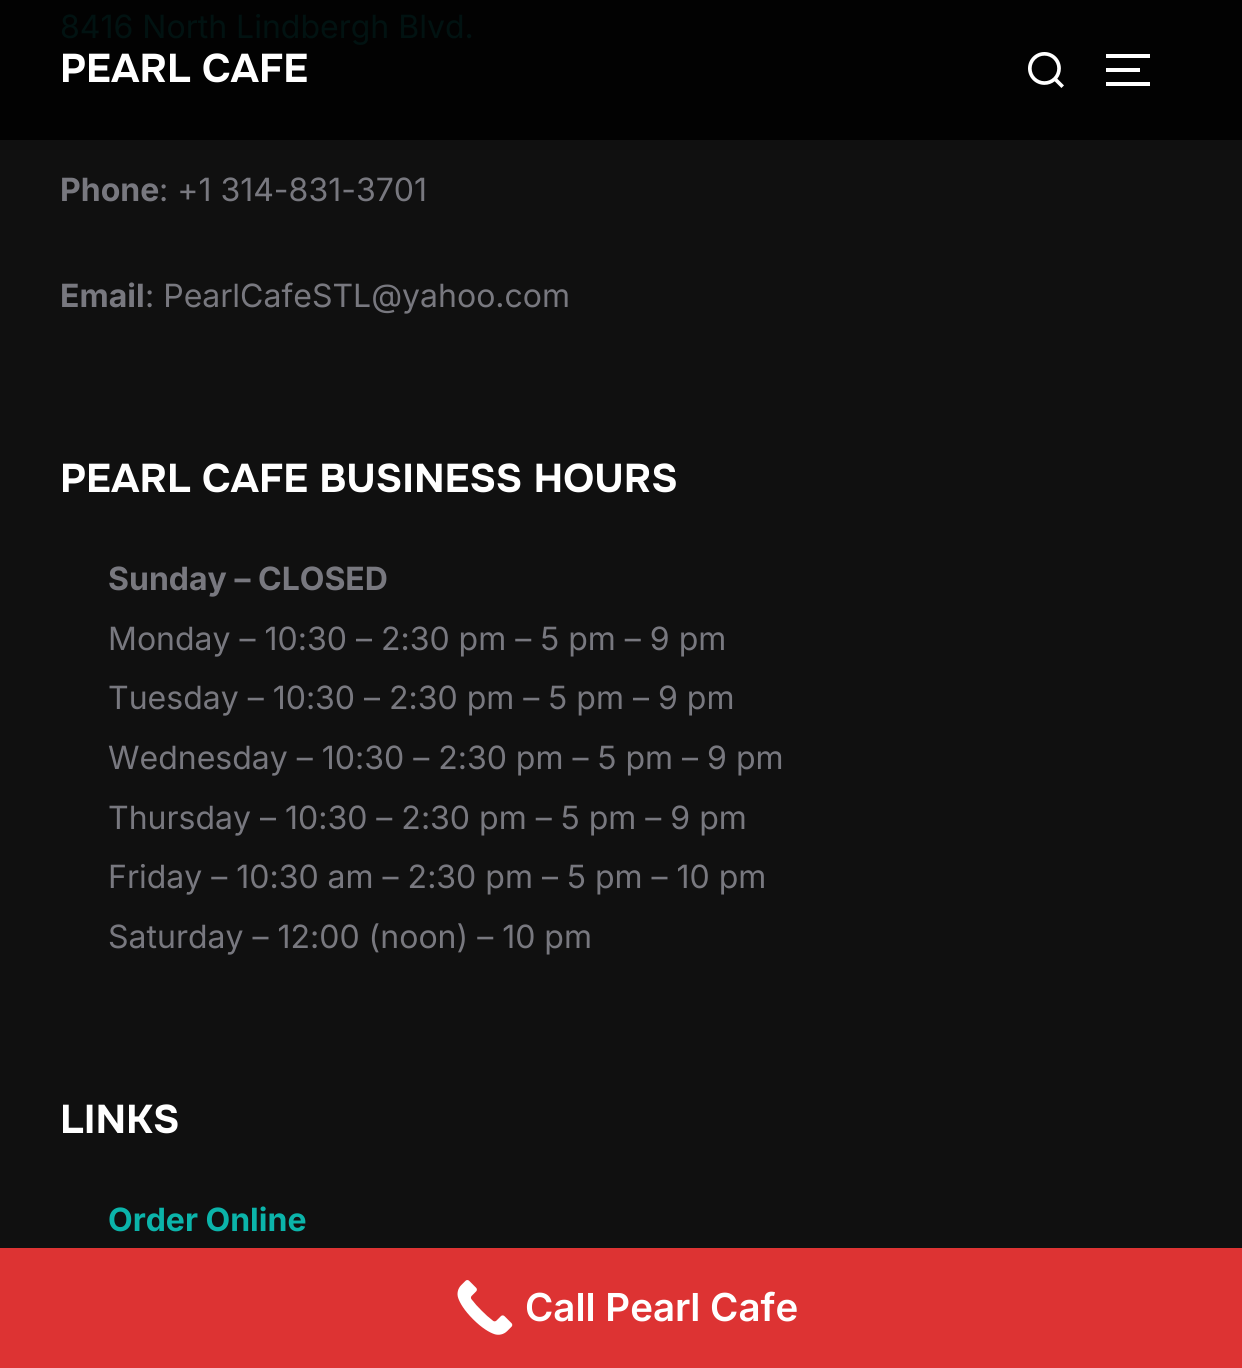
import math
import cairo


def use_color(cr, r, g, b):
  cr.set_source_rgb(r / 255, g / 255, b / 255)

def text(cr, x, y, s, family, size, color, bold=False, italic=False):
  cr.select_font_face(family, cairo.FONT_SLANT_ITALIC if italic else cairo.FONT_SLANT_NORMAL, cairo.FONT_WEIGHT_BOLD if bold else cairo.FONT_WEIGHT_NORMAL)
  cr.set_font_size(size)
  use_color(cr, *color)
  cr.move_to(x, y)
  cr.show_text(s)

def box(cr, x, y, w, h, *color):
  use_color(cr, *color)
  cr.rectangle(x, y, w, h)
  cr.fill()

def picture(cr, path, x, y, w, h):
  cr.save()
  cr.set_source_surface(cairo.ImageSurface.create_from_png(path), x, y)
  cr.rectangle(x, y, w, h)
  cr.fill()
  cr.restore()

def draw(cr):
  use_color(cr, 16, 16, 16)
  cr.paint()
  box(cr, 0, 0, 1242, 140, 2, 2, 2)
  picture(cr, "img_01.png", 1028, 52, 36, 36)
  box(cr, 1106, 54, 44, 4, 255, 255, 255)
  box(cr, 1106, 68, 34, 4, 255, 255, 255)
  box(cr, 1106, 82, 44, 4, 255, 255, 255)
  box(cr, 0, 1248, 1242, 120, 221, 51, 51)
  picture(cr, "img_02.png", 457, 1280, 56, 55)
  text(cr, 60, 38, "8416 North Lindbergh Blvd.", "Inter", 32, (1, 18, 17))
  text(cr, 60, 201, "Phone", "Inter", 32, (120, 120, 127), bold=True)
  text(cr, 159, 201, ": +1 314-831-3701", "Inter", 32, (120, 120, 127))
  text(cr, 60, 307, "Email", "Inter", 32, (120, 120, 127), bold=True)
  text(cr, 145, 307, ": PearlCafeSTL@yahoo.com", "Inter", 32, (120, 120, 127))
  text(cr, 60, 492, "PEARL CAFE BUSINESS HOURS", "Onest", 40, (255, 255, 255), bold=True)
  text(cr, 108, 590, "Sunday – CLOSED", "Inter", 32, (120, 120, 127), bold=True)
  text(cr, 108, 650, "Monday – 10:30 – 2:30 pm – 5 pm – 9 pm", "Inter", 32, (120, 120, 127))
  text(cr, 108, 709, "Tuesday – 10:30 – 2:30 pm – 5 pm – 9 pm", "Inter", 32, (120, 120, 127))
  text(cr, 108, 769, "Wednesday – 10:30 – 2:30 pm – 5 pm – 9 pm", "Inter", 32, (120, 120, 127))
  text(cr, 108, 829, "Thursday – 10:30 – 2:30 pm – 5 pm – 9 pm", "Inter", 32, (120, 120, 127))
  text(cr, 108, 888, "Friday – 10:30 am – 2:30 pm – 5 pm – 10 pm", "Inter", 32, (120, 120, 127))
  text(cr, 108, 948, "Saturday – 12:00 (noon) – 10 pm", "Inter", 32, (120, 120, 127))
  text(cr, 60, 1133, "LINKS", "Onest", 40, (255, 255, 255), bold=True)
  text(cr, 108, 1231, "Order Online", "Inter", 32, (11, 180, 170), bold=True)
  text(cr, 60, 82, "PEARL CAFE", "Onest", 40, (255, 255, 255), bold=True)
  text(cr, 525, 1321, "Call Pearl Cafe", "Inter SemiBold", 38.5, (255, 255, 255))


surface = cairo.ImageSurface(cairo.FORMAT_RGB24, 1242, 1368)
cr = cairo.Context(surface)
options = cairo.FontOptions()
options.set_hint_metrics(cairo.HINT_METRICS_OFF)
options.set_hint_style(cairo.HINT_STYLE_NONE)
cr.set_font_options(options)
cr.set_miter_limit(4)
draw(cr)
surface.write_to_png("out.png")
